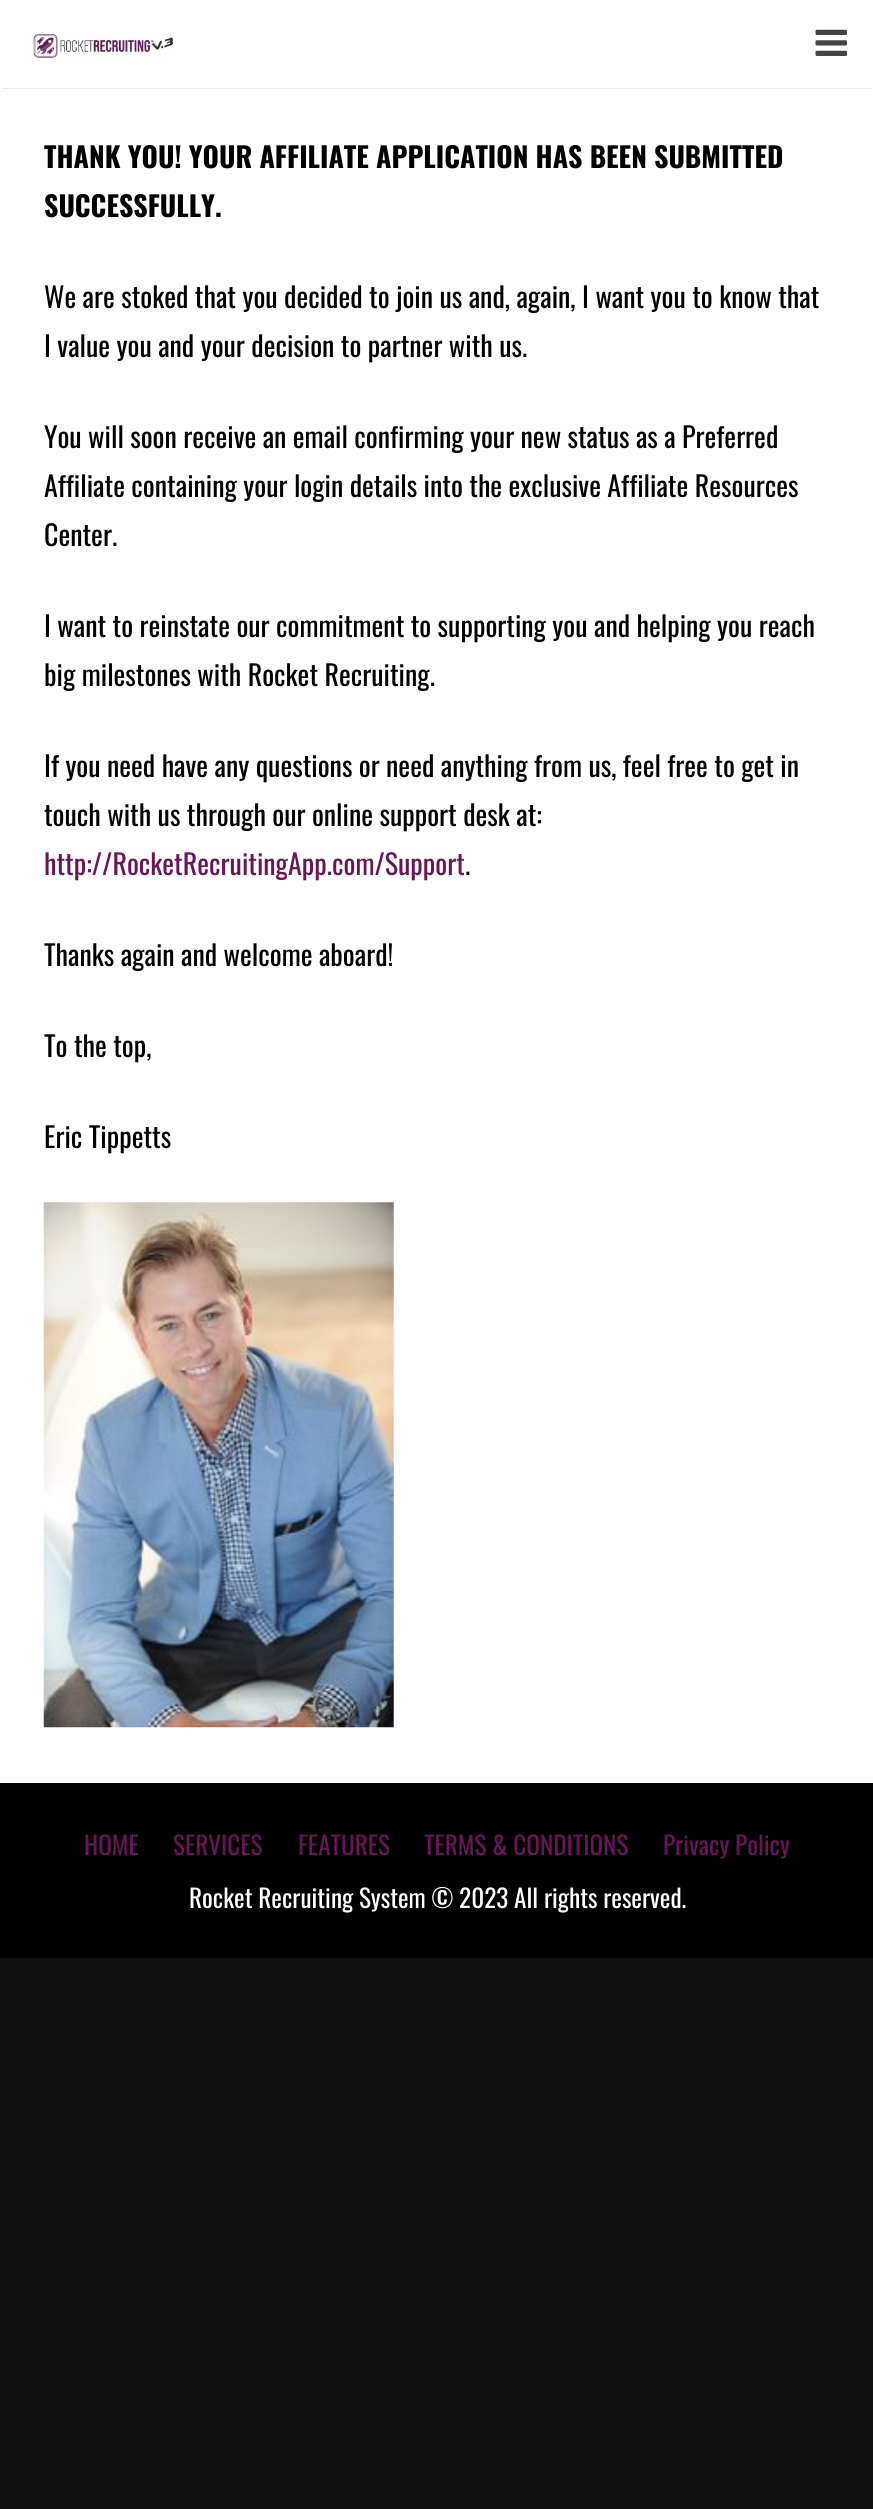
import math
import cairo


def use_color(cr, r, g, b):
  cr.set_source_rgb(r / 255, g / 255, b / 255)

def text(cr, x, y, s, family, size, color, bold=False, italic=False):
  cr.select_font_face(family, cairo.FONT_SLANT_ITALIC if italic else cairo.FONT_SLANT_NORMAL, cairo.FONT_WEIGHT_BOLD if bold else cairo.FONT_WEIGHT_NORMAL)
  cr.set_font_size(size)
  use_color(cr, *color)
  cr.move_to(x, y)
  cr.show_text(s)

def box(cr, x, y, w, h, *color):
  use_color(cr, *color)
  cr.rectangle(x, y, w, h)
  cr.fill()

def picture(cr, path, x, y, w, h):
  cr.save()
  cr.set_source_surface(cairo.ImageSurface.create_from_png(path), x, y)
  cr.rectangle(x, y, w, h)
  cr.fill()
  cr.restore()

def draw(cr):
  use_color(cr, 17, 17, 17)
  cr.paint()
  box(cr, 0, 0, 873, 1783, 255, 255, 255)
  box(cr, 2, 88, 870, 1, 235, 235, 235)
  picture(cr, "img_01.png", 33, 34, 141, 25)
  picture(cr, "img_02.png", 815, 29, 32, 27)
  picture(cr, "img_03.png", 43, 1202, 351, 526)
  box(cr, 0, 1783, 873, 175, 0, 0, 0)
  text(cr, 44, 168, "THANK YOU! YOUR AFFILIATE APPLICATION HAS BEEN SUBMITTED", "Oswald", 28, (0, 0, 0), bold=True)
  text(cr, 44, 217, "SUCCESSFULLY.", "Oswald", 28, (0, 0, 0), bold=True)
  text(cr, 44, 308, "We are stoked that you decided to join us and, again, I want you to know that", "Oswald", 28, (0, 0, 0))
  text(cr, 44, 357, "I value you and your decision to partner with us.", "Oswald", 28, (0, 0, 0))
  text(cr, 44, 448, "You will soon receive an email confirming your new status as a Preferred", "Oswald", 28, (0, 0, 0))
  text(cr, 44, 497, "Affiliate containing your login details into the exclusive Affiliate Resources", "Oswald", 28, (0, 0, 0))
  text(cr, 44, 546, "Center.", "Oswald", 28, (0, 0, 0))
  text(cr, 44, 637, "I want to reinstate our commitment to supporting you and helping you reach", "Oswald", 28, (0, 0, 0))
  text(cr, 44, 686, "big milestones with Rocket Recruiting.", "Oswald", 28, (0, 0, 0))
  text(cr, 44, 777, "If you need have any questions or need anything from us, feel free to get in", "Oswald", 28, (0, 0, 0))
  text(cr, 44, 826, "touch with us through our online support desk at:", "Oswald", 28, (0, 0, 0))
  text(cr, 44, 875, "http://RocketRecruitingApp.com/Support", "Oswald", 28, (106, 20, 90))
  text(cr, 465, 875, ".", "Oswald", 28, (0, 0, 0))
  text(cr, 44, 966, "Thanks again and welcome aboard!", "Oswald", 28, (0, 0, 0))
  text(cr, 44, 1057, "To the top,", "Oswald", 28, (0, 0, 0))
  text(cr, 44, 1148, "Eric Tippetts", "Oswald", 28, (0, 0, 0))
  text(cr, 84, 1855, "HOME", "Oswald", 25.25, (106, 20, 90))
  text(cr, 173, 1855, "SERVICES", "Oswald", 25.25, (106, 20, 90))
  text(cr, 298, 1855, "FEATURES", "Oswald", 25.25, (106, 20, 90))
  text(cr, 424, 1855, "TERMS & CONDITIONS", "Oswald", 25.25, (106, 20, 90))
  text(cr, 663, 1855, "Privacy Policy", "Oswald", 25.25, (106, 20, 90))
  text(cr, 189, 1908, "Rocket Recruiting System © 2023 All rights reserved.", "Oswald", 25.25, (255, 255, 255))


surface = cairo.ImageSurface(cairo.FORMAT_RGB24, 873, 2509)
cr = cairo.Context(surface)
options = cairo.FontOptions()
options.set_hint_metrics(cairo.HINT_METRICS_OFF)
options.set_hint_style(cairo.HINT_STYLE_NONE)
cr.set_font_options(options)
cr.set_miter_limit(4)
draw(cr)
surface.write_to_png("out.png")
